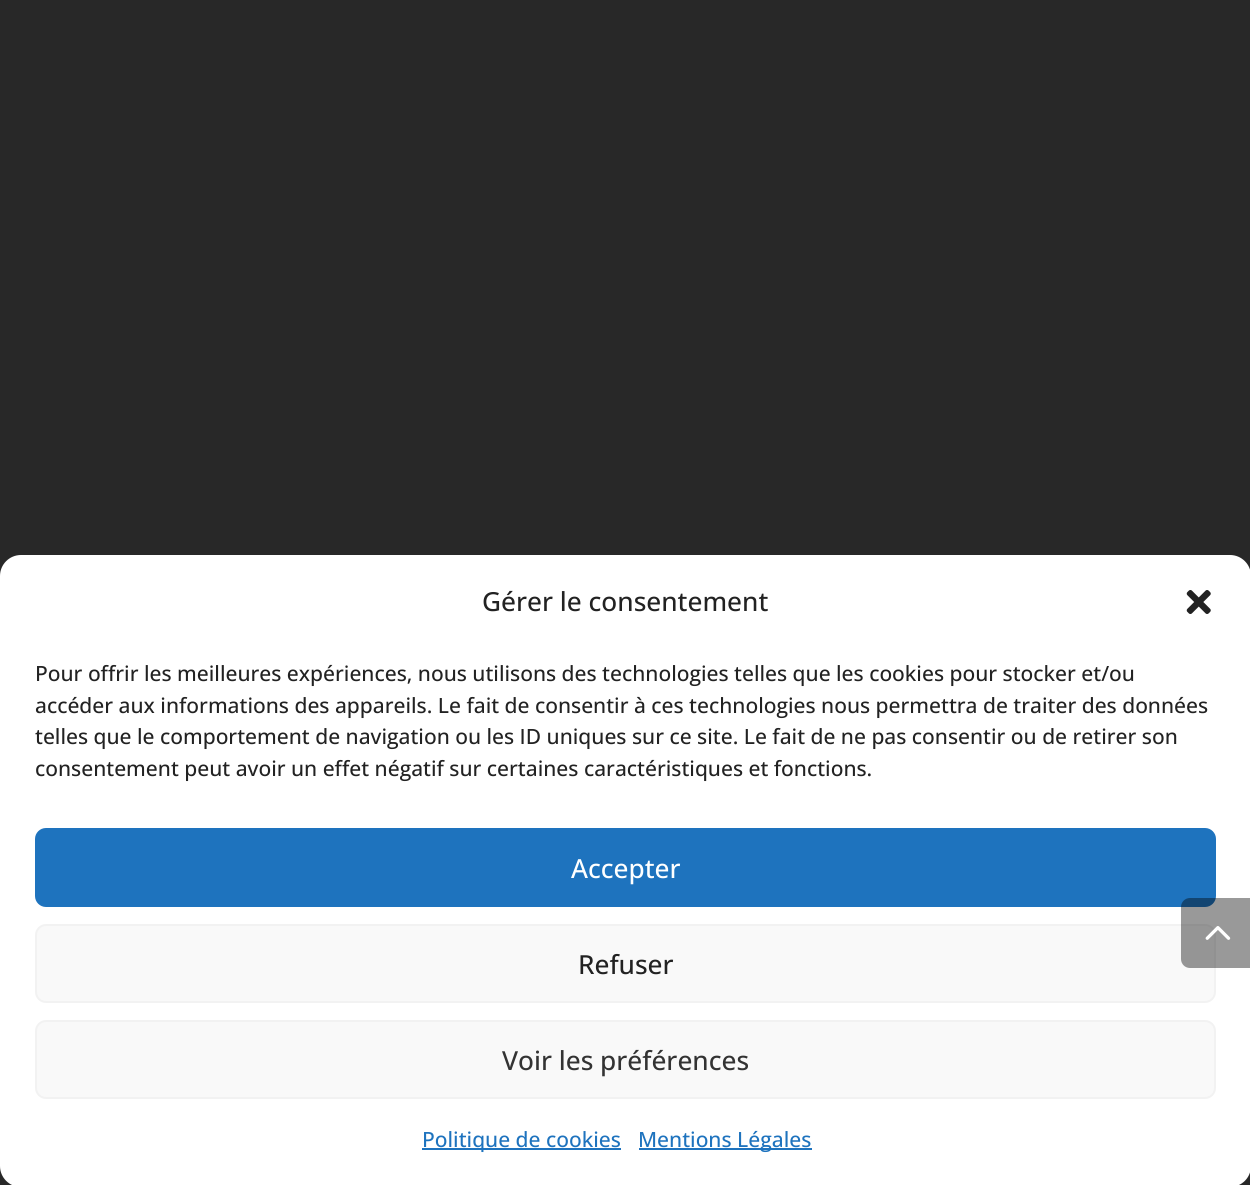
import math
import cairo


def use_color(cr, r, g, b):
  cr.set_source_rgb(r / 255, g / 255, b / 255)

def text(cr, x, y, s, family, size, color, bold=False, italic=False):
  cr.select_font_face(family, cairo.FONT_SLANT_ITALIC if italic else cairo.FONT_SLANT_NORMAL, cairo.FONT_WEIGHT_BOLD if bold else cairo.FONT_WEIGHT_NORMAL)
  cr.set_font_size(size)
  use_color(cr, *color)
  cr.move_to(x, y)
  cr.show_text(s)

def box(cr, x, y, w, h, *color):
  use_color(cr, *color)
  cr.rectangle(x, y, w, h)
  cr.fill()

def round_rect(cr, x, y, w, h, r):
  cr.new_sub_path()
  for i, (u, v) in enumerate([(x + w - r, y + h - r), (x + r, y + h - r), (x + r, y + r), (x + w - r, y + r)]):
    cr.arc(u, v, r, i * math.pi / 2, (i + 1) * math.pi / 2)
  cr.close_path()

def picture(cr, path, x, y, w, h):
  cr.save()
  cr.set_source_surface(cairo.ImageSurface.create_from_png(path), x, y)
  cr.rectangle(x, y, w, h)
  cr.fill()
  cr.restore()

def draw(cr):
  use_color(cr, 40, 40, 40)
  cr.paint()
  use_color(cr, 255, 255, 255)
  round_rect(cr, 0, 555, 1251, 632, 21)
  cr.fill()
  picture(cr, "img_01.png", 1186, 590, 25, 24)
  use_color(cr, 30, 115, 190)
  round_rect(cr, 36, 829, 1179, 77, 10)
  cr.fill_preserve()
  cr.stroke()
  use_color(cr, 249, 249, 249)
  round_rect(cr, 36, 925, 1179, 77, 10)
  cr.fill_preserve()
  use_color(cr, 242, 242, 242)
  cr.stroke()
  use_color(cr, 249, 249, 249)
  round_rect(cr, 36, 1021, 1179, 77, 10)
  cr.fill_preserve()
  use_color(cr, 242, 242, 242)
  cr.stroke()
  box(cr, 422, 1148, 199, 2, 30, 115, 190)
  box(cr, 639, 1148, 173, 2, 30, 115, 190)
  cr.set_source_rgba(0, 0, 0, 0.4)
  cr.new_path()
  cr.move_to(1190, 898)
  cr.line_to(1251, 898)
  cr.line_to(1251, 968)
  cr.line_to(1190, 968)
  cr.curve_to(1185, 968, 1181, 964, 1181, 959)
  cr.line_to(1181, 907)
  cr.curve_to(1181, 902, 1185, 898, 1190, 898)
  cr.close_path()
  cr.fill()
  picture(cr, "img_02.png", 1205, 926, 26, 14)
  text(cr, 482, 611, "Gérer le consentement", "Open Sans Medium", 26.25, (34, 34, 34))
  text(cr, 35, 681, "Pour offrir les meilleures expériences, nous utilisons des technologies telles que les cookies pour stocker et/ou", "Open Sans Medium", 21, (34, 34, 34))
  text(cr, 35, 713, "accéder aux informations des appareils. Le fait de consentir à ces technologies nous permettra de traiter des données", "Open Sans Medium", 21, (34, 34, 34))
  text(cr, 35, 744, "telles que le comportement de navigation ou les ID uniques sur ce site. Le fait de ne pas consentir ou de retirer son", "Open Sans Medium", 21, (34, 34, 34))
  text(cr, 35, 776, "consentement peut avoir un effet négatif sur certaines caractéristiques et fonctions.", "Open Sans Medium", 21, (34, 34, 34))
  text(cr, 571, 878, "Accepter", "Open Sans Medium", 26.25, (255, 255, 255))
  text(cr, 578, 974, "Refuser", "Open Sans Medium", 26.25, (34, 34, 34))
  text(cr, 502, 1070, "Voir les préférences", "Open Sans Medium", 26.25, (51, 51, 51))
  text(cr, 422, 1147, "Politique de cookies", "Open Sans Medium", 21, (30, 115, 190))
  text(cr, 638, 1147, "Mentions Légales", "Open Sans Medium", 21, (30, 115, 190))


surface = cairo.ImageSurface(cairo.FORMAT_RGB24, 1250, 1185)
cr = cairo.Context(surface)
options = cairo.FontOptions()
options.set_hint_metrics(cairo.HINT_METRICS_OFF)
options.set_hint_style(cairo.HINT_STYLE_NONE)
cr.set_font_options(options)
cr.set_miter_limit(4)
draw(cr)
surface.write_to_png("out.png")
